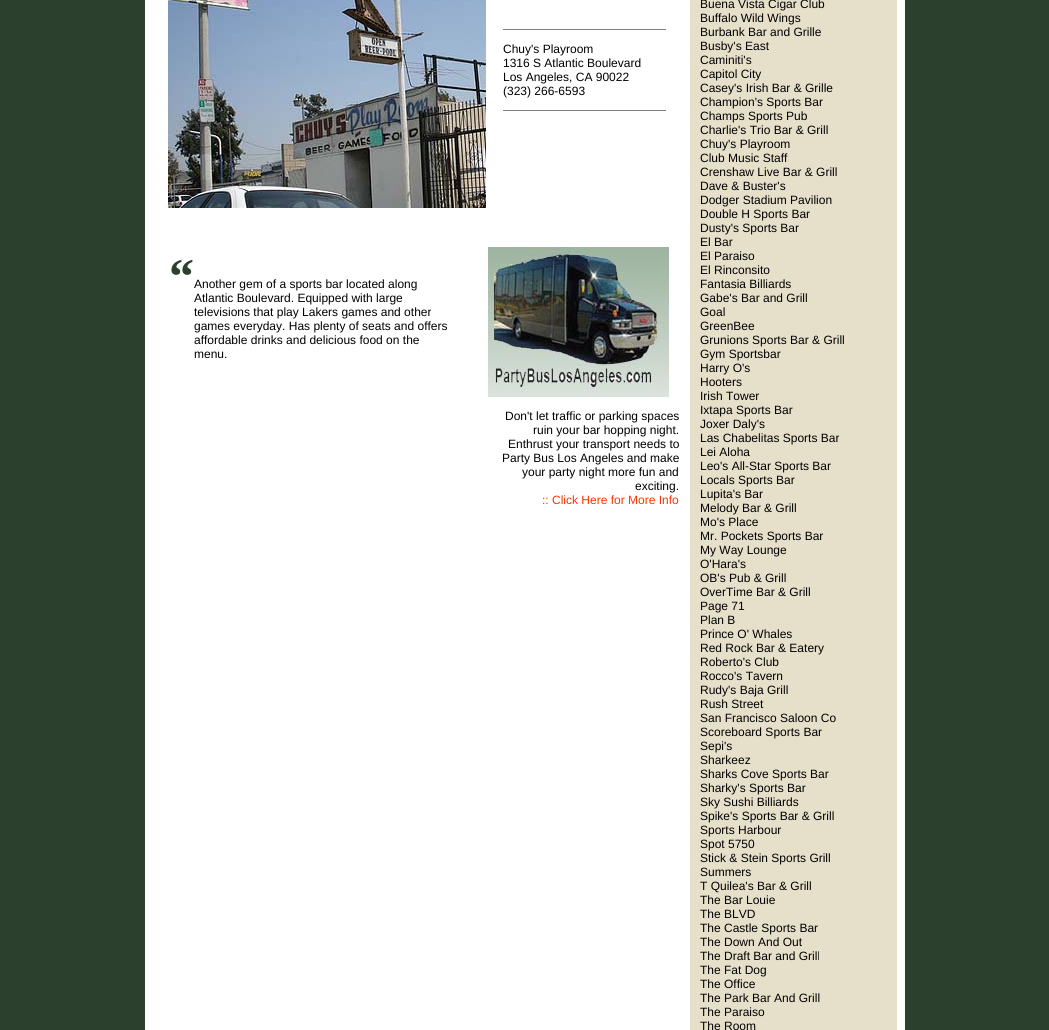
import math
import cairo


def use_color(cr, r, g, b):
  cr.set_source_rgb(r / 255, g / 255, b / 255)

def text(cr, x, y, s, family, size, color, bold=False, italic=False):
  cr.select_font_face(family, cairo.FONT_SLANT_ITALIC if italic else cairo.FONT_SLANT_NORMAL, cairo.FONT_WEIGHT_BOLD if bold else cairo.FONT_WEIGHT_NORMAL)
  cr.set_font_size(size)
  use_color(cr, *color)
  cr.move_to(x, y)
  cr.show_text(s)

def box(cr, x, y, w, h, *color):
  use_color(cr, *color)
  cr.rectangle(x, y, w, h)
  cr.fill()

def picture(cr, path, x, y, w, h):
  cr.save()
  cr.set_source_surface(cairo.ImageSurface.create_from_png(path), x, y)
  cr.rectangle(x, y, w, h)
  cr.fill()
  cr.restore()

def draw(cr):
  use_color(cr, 43, 64, 45)
  cr.paint()
  box(cr, 145, 0, 760, 1030, 255, 255, 255)
  picture(cr, "img_01.png", 168, 0, 318, 208)
  box(cr, 503, 29, 163, 1, 128, 128, 128)
  box(cr, 503, 110, 163, 1, 128, 128, 128)
  picture(cr, "img_02.png", 488, 247, 181, 150)
  box(cr, 690, 0, 207, 1030, 230, 223, 202)
  text(cr, 503, 53, "Chuy's Playroom", "Liberation Sans", 12, (0, 0, 0))
  text(cr, 503, 67, "1316 S Atlantic Boulevard", "Liberation Sans", 12, (0, 0, 0))
  text(cr, 503, 81, "Los Angeles, CA 90022", "Liberation Sans", 12, (0, 0, 0))
  text(cr, 503, 95, "(323) 266-6593", "Liberation Sans", 12, (0, 0, 0))
  text(cr, 169, 293, "“", "Liberation Serif", 50, (43, 64, 45), bold=True)
  text(cr, 194, 288, "Another gem of a sports bar located along", "Liberation Sans", 12, (0, 0, 0))
  text(cr, 194, 302, "Atlantic Boulevard. Equipped with large", "Liberation Sans", 12, (0, 0, 0))
  text(cr, 194, 316, "televisions that play Lakers games and other", "Liberation Sans", 12, (0, 0, 0))
  text(cr, 194, 330, "games everyday. Has plenty of seats and offers", "Liberation Sans", 12, (0, 0, 0))
  text(cr, 194, 344, "affordable drinks and delicious food on the", "Liberation Sans", 12, (0, 0, 0))
  text(cr, 194, 358, "menu.", "Liberation Sans", 12, (0, 0, 0))
  text(cr, 505, 420, "Don't let traffic or parking spaces", "Liberation Sans", 12, (0, 0, 0))
  text(cr, 533, 434, "ruin your bar hopping night.", "Liberation Sans", 12, (0, 0, 0))
  text(cr, 508, 448, "Enthrust your transport needs to", "Liberation Sans", 12, (0, 0, 0))
  text(cr, 502, 462, "Party Bus Los Angeles and make", "Liberation Sans", 12, (0, 0, 0))
  text(cr, 522, 476, "your party night more fun and", "Liberation Sans", 12, (0, 0, 0))
  text(cr, 635, 490, "exciting.", "Liberation Sans", 12, (0, 0, 0))
  text(cr, 542, 504, ":: Click Here for More Info", "Liberation Sans", 12, (255, 51, 0))
  text(cr, 700, 8, "Buena Vista Cigar Club", "Liberation Sans", 12, (0, 0, 0))
  text(cr, 700, 22, "Buffalo Wild Wings", "Liberation Sans", 12, (0, 0, 0))
  text(cr, 700, 36, "Burbank Bar and Grille", "Liberation Sans", 12, (0, 0, 0))
  text(cr, 700, 50, "Busby's East", "Liberation Sans", 12, (0, 0, 0))
  text(cr, 700, 64, "Caminiti's", "Liberation Sans", 12, (0, 0, 0))
  text(cr, 700, 78, "Capitol City", "Liberation Sans", 12, (0, 0, 0))
  text(cr, 700, 92, "Casey's Irish Bar & Grille", "Liberation Sans", 12, (0, 0, 0))
  text(cr, 700, 106, "Champion's Sports Bar", "Liberation Sans", 12, (0, 0, 0))
  text(cr, 700, 120, "Champs Sports Pub", "Liberation Sans", 12, (0, 0, 0))
  text(cr, 700, 134, "Charlie's Trio Bar & Grill", "Liberation Sans", 12, (0, 0, 0))
  text(cr, 700, 148, "Chuy's Playroom", "Liberation Sans", 12, (0, 0, 0))
  text(cr, 700, 162, "Club Music Staff", "Liberation Sans", 12, (0, 0, 0))
  text(cr, 700, 176, "Crenshaw Live Bar & Grill", "Liberation Sans", 12, (0, 0, 0))
  text(cr, 700, 190, "Dave & Buster's", "Liberation Sans", 12, (0, 0, 0))
  text(cr, 700, 204, "Dodger Stadium Pavilion", "Liberation Sans", 12, (0, 0, 0))
  text(cr, 700, 218, "Double H Sports Bar", "Liberation Sans", 12, (0, 0, 0))
  text(cr, 700, 232, "Dusty's Sports Bar", "Liberation Sans", 12, (0, 0, 0))
  text(cr, 700, 246, "El Bar", "Liberation Sans", 12, (0, 0, 0))
  text(cr, 700, 260, "El Paraiso", "Liberation Sans", 12, (0, 0, 0))
  text(cr, 700, 274, "El Rinconsito", "Liberation Sans", 12, (0, 0, 0))
  text(cr, 700, 288, "Fantasia Billiards", "Liberation Sans", 12, (0, 0, 0))
  text(cr, 700, 302, "Gabe's Bar and Grill", "Liberation Sans", 12, (0, 0, 0))
  text(cr, 700, 316, "Goal", "Liberation Sans", 12, (0, 0, 0))
  text(cr, 700, 330, "GreenBee", "Liberation Sans", 12, (0, 0, 0))
  text(cr, 700, 344, "Grunions Sports Bar & Grill", "Liberation Sans", 12, (0, 0, 0))
  text(cr, 700, 358, "Gym Sportsbar", "Liberation Sans", 12, (0, 0, 0))
  text(cr, 700, 372, "Harry O's", "Liberation Sans", 12, (0, 0, 0))
  text(cr, 700, 386, "Hooters", "Liberation Sans", 12, (0, 0, 0))
  text(cr, 700, 400, "Irish Tower", "Liberation Sans", 12, (0, 0, 0))
  text(cr, 700, 414, "Ixtapa Sports Bar", "Liberation Sans", 12, (0, 0, 0))
  text(cr, 700, 428, "Joxer Daly's", "Liberation Sans", 12, (0, 0, 0))
  text(cr, 700, 442, "Las Chabelitas Sports Bar", "Liberation Sans", 12, (0, 0, 0))
  text(cr, 700, 456, "Lei Aloha", "Liberation Sans", 12, (0, 0, 0))
  text(cr, 700, 470, "Leo's All-Star Sports Bar", "Liberation Sans", 12, (0, 0, 0))
  text(cr, 700, 484, "Locals Sports Bar", "Liberation Sans", 12, (0, 0, 0))
  text(cr, 700, 498, "Lupita's Bar", "Liberation Sans", 12, (0, 0, 0))
  text(cr, 700, 512, "Melody Bar & Grill", "Liberation Sans", 12, (0, 0, 0))
  text(cr, 700, 526, "Mo's Place", "Liberation Sans", 12, (0, 0, 0))
  text(cr, 700, 540, "Mr. Pockets Sports Bar", "Liberation Sans", 12, (0, 0, 0))
  text(cr, 700, 554, "My Way Lounge", "Liberation Sans", 12, (0, 0, 0))
  text(cr, 700, 568, "O'Hara's", "Liberation Sans", 12, (0, 0, 0))
  text(cr, 700, 582, "OB's Pub & Grill", "Liberation Sans", 12, (0, 0, 0))
  text(cr, 700, 596, "OverTime Bar & Grill", "Liberation Sans", 12, (0, 0, 0))
  text(cr, 700, 610, "Page 71", "Liberation Sans", 12, (0, 0, 0))
  text(cr, 700, 624, "Plan B", "Liberation Sans", 12, (0, 0, 0))
  text(cr, 700, 638, "Prince O' Whales", "Liberation Sans", 12, (0, 0, 0))
  text(cr, 700, 652, "Red Rock Bar & Eatery", "Liberation Sans", 12, (0, 0, 0))
  text(cr, 700, 666, "Roberto's Club", "Liberation Sans", 12, (0, 0, 0))
  text(cr, 700, 680, "Rocco's Tavern", "Liberation Sans", 12, (0, 0, 0))
  text(cr, 700, 694, "Rudy's Baja Grill", "Liberation Sans", 12, (0, 0, 0))
  text(cr, 700, 708, "Rush Street", "Liberation Sans", 12, (0, 0, 0))
  text(cr, 700, 722, "San Francisco Saloon Co", "Liberation Sans", 12, (0, 0, 0))
  text(cr, 700, 736, "Scoreboard Sports Bar", "Liberation Sans", 12, (0, 0, 0))
  text(cr, 700, 750, "Sepi's", "Liberation Sans", 12, (0, 0, 0))
  text(cr, 700, 764, "Sharkeez", "Liberation Sans", 12, (0, 0, 0))
  text(cr, 700, 778, "Sharks Cove Sports Bar", "Liberation Sans", 12, (0, 0, 0))
  text(cr, 700, 792, "Sharky's Sports Bar", "Liberation Sans", 12, (0, 0, 0))
  text(cr, 700, 806, "Sky Sushi Billiards", "Liberation Sans", 12, (0, 0, 0))
  text(cr, 700, 820, "Spike's Sports Bar & Grill", "Liberation Sans", 12, (0, 0, 0))
  text(cr, 700, 834, "Sports Harbour", "Liberation Sans", 12, (0, 0, 0))
  text(cr, 700, 848, "Spot 5750", "Liberation Sans", 12, (0, 0, 0))
  text(cr, 700, 862, "Stick & Stein Sports Grill", "Liberation Sans", 12, (0, 0, 0))
  text(cr, 700, 876, "Summers", "Liberation Sans", 12, (0, 0, 0))
  text(cr, 700, 890, "T Quilea's Bar & Grill", "Liberation Sans", 12, (0, 0, 0))
  text(cr, 700, 904, "The Bar Louie", "Liberation Sans", 12, (0, 0, 0))
  text(cr, 700, 918, "The BLVD", "Liberation Sans", 12, (0, 0, 0))
  text(cr, 700, 932, "The Castle Sports Bar", "Liberation Sans", 12, (0, 0, 0))
  text(cr, 700, 946, "The Down And Out", "Liberation Sans", 12, (0, 0, 0))
  text(cr, 700, 960, "The Draft Bar and Grill", "Liberation Sans", 12, (0, 0, 0))
  text(cr, 700, 974, "The Fat Dog", "Liberation Sans", 12, (0, 0, 0))
  text(cr, 700, 988, "The Office", "Liberation Sans", 12, (0, 0, 0))
  text(cr, 700, 1002, "The Park Bar And Grill", "Liberation Sans", 12, (0, 0, 0))
  text(cr, 700, 1016, "The Paraiso", "Liberation Sans", 12, (0, 0, 0))
  text(cr, 700, 1030, "The Room", "Liberation Sans", 12, (0, 0, 0))


surface = cairo.ImageSurface(cairo.FORMAT_RGB24, 1049, 1030)
cr = cairo.Context(surface)
options = cairo.FontOptions()
options.set_hint_metrics(cairo.HINT_METRICS_OFF)
options.set_hint_style(cairo.HINT_STYLE_NONE)
cr.set_font_options(options)
cr.set_miter_limit(4)
draw(cr)
surface.write_to_png("out.png")
